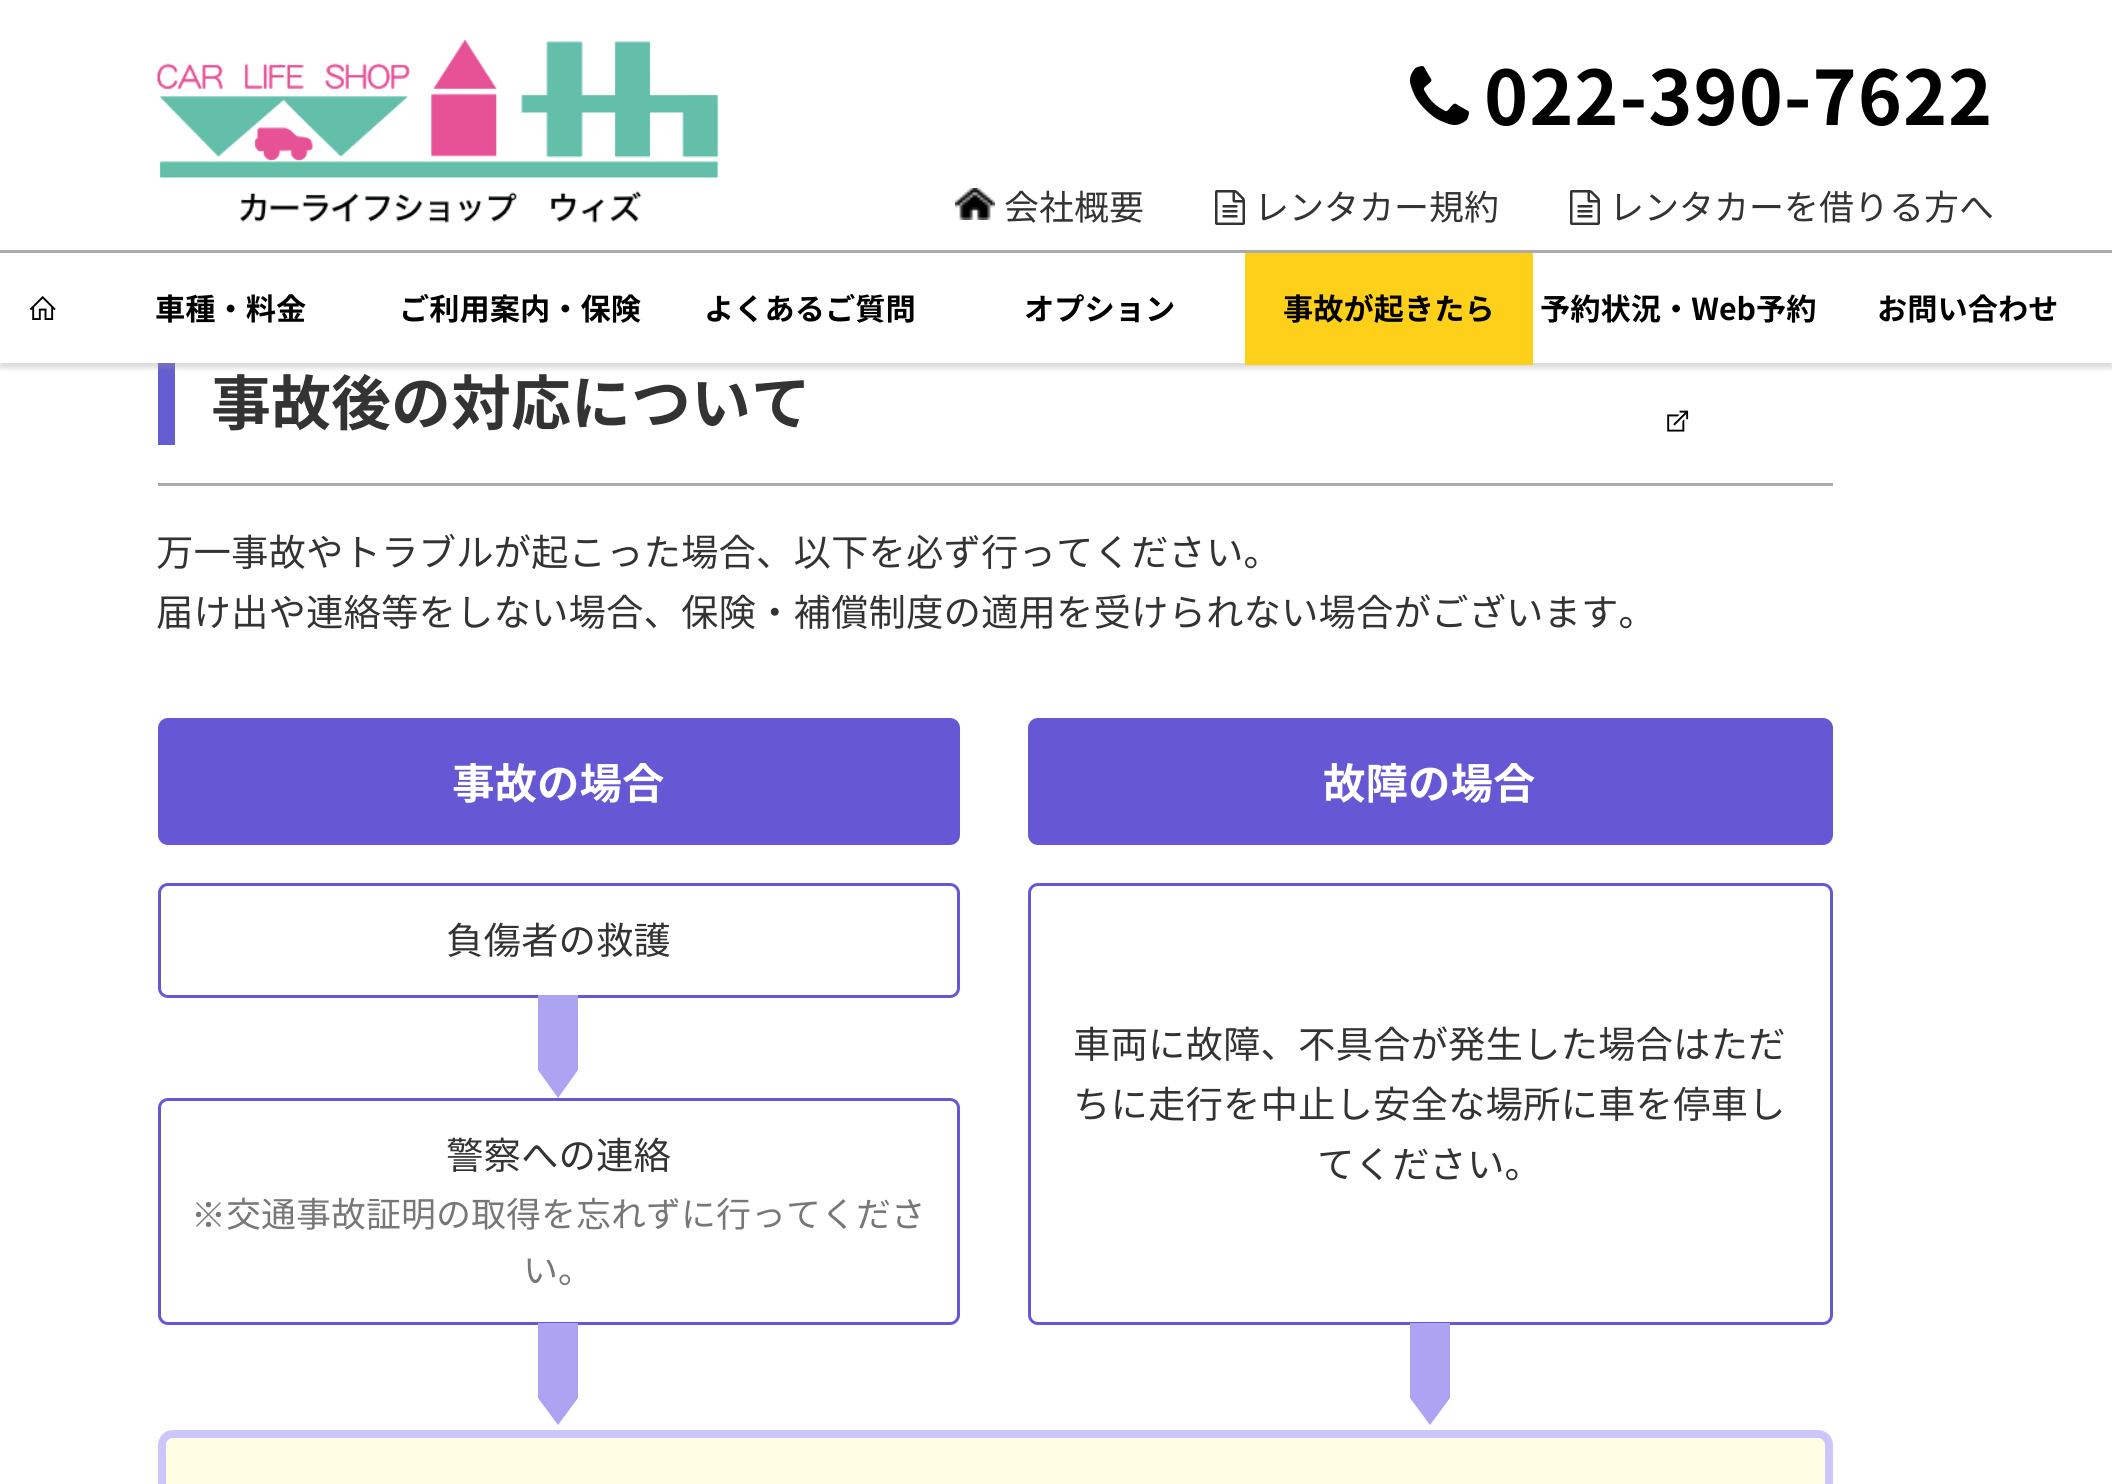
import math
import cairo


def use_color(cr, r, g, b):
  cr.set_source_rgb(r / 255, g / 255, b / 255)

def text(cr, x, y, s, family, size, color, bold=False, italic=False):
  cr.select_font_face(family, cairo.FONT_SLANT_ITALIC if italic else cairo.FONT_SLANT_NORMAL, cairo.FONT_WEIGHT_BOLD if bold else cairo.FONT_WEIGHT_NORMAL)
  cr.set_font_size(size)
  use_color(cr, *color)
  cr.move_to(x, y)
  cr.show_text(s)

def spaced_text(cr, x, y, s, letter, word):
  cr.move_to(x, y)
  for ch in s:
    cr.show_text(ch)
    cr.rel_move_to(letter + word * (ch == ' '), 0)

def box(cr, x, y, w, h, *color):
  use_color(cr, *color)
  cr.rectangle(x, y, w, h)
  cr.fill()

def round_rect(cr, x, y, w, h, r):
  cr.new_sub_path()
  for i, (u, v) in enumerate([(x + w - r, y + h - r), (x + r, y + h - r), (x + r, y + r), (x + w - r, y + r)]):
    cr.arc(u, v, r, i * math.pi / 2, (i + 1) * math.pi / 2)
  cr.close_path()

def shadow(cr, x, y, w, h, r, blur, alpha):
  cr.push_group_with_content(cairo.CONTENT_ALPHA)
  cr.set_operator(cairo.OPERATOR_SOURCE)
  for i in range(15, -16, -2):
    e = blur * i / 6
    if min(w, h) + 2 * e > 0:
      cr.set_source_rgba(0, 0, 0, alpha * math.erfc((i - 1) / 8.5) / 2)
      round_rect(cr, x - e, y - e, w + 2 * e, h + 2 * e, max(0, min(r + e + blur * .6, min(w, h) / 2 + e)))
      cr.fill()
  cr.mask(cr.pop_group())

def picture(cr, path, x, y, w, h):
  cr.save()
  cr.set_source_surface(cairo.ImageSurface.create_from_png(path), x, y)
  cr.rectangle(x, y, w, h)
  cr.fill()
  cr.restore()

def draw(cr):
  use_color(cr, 255, 255, 255)
  cr.paint()
  box(cr, 158, 363, 17, 82, 100, 94, 210)
  use_color(cr, 150, 150, 150)
  shadow(cr, 0, 5, 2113, 363, 0, 2.5, 0.35)
  box(cr, 0, 1, 2112, 362, 255, 255, 255)
  picture(cr, "img_01.png", 157, 40, 562, 183)
  picture(cr, "img_02.png", 1410, 66, 59, 59)
  picture(cr, "img_03.png", 955, 188, 40, 32)
  picture(cr, "img_04.png", 1215, 190, 30, 35)
  picture(cr, "img_04.png", 1570, 190, 30, 35)
  box(cr, 0, 250, 2112, 3, 171, 171, 171)
  picture(cr, "img_05.png", 29, 296, 27, 24)
  box(cr, 1245, 253, 288, 112, 255, 208, 26)
  picture(cr, "img_06.png", 1667, 410, 22, 22)
  box(cr, 158, 483, 1675, 3, 171, 171, 171)
  use_color(cr, 102, 88, 212)
  round_rect(cr, 158, 718, 802, 127, 10)
  cr.fill()
  round_rect(cr, 159.5, 884.5, 799, 112, 8.5)
  cr.set_line_width(3)
  cr.stroke()
  box(cr, 538, 995, 40, 75, 172, 163, 243)
  cr.new_path()
  cr.move_to(538, 1070)
  cr.line_to(578, 1070)
  cr.line_to(558, 1098)
  cr.close_path()
  cr.fill()
  round_rect(cr, 159.5, 1099.5, 799, 224, 8.5)
  use_color(cr, 102, 88, 212)
  cr.stroke()
  box(cr, 538, 1323, 40, 75, 172, 163, 243)
  cr.new_path()
  cr.move_to(538, 1398)
  cr.line_to(578, 1398)
  cr.line_to(558, 1425)
  cr.close_path()
  cr.fill()
  use_color(cr, 102, 88, 212)
  round_rect(cr, 1028, 718, 805, 127, 10)
  cr.fill()
  round_rect(cr, 1029.5, 884.5, 802, 439, 8.5)
  cr.stroke()
  box(cr, 1410, 1323, 40, 75, 172, 163, 243)
  cr.new_path()
  cr.move_to(1410, 1398)
  cr.line_to(1450, 1398)
  cr.line_to(1430, 1425)
  cr.close_path()
  cr.fill()
  use_color(cr, 255, 254, 228)
  round_rect(cr, 162, 1434, 1667, 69, 11)
  cr.fill_preserve()
  use_color(cr, 205, 198, 250)
  cr.set_line_width(8)
  cr.stroke()
  cr.select_font_face("Noto Sans JP", cairo.FONT_SLANT_NORMAL, cairo.FONT_WEIGHT_BOLD)
  cr.set_font_size(75)
  use_color(cr, 0, 0, 0)
  spaced_text(cr, 1484, 125, "022-390-7622", 1, 0)
  text(cr, 1004, 220, "会社概要", "Noto Sans JP", 35, (51, 51, 51))
  text(cr, 1254, 220, "レンタカー規約", "Noto Sans JP", 35, (51, 51, 51))
  text(cr, 1609, 220, "レンタカーを借りる方へ", "Noto Sans JP", 35, (51, 51, 51))
  text(cr, 155, 320, "車種・料金", "Noto Sans JP", 30.25, (0, 0, 0), bold=True)
  text(cr, 399, 320, "ご利用案内・保険", "Noto Sans JP", 30.25, (0, 0, 0), bold=True)
  text(cr, 704, 320, "よくあるご質問", "Noto Sans JP", 30.25, (0, 0, 0), bold=True)
  text(cr, 1024, 320, "オプション", "Noto Sans JP", 30.25, (0, 0, 0), bold=True)
  text(cr, 1283, 320, "事故が起きたら", "Noto Sans JP", 30.25, (0, 0, 0), bold=True)
  text(cr, 1540, 320, "予約状況・Web予約", "Noto Sans JP", 30.25, (0, 0, 0), bold=True)
  text(cr, 1877, 320, "お問い合わせ", "Noto Sans JP", 30.25, (0, 0, 0), bold=True)
  text(cr, 211, 425, "事故後の対応について", "Noto Sans JP", 60, (51, 51, 51), bold=True)
  text(cr, 156, 566, "万一事故やトラブルが起こった場合、以下を必ず行ってください。", "Noto Sans JP", 37.5, (51, 51, 51))
  text(cr, 156, 626, "届け出や連絡等をしない場合、保険・補償制度の適用を受けられない場合がございます。", "Noto Sans JP", 37.5, (51, 51, 51))
  text(cr, 452, 799, "事故の場合", "Noto Sans JP", 42.5, (255, 255, 255), bold=True)
  text(cr, 446, 954, "負傷者の救護", "Noto Sans JP", 37.5, (51, 51, 51))
  text(cr, 446, 1169, "警察への連絡", "Noto Sans JP", 37.5, (51, 51, 51))
  text(cr, 191, 1227, "※", "WenQuanYi Zen Hei Medium", 35, (119, 119, 119))
  text(cr, 226, 1227, "交通事故証明の取得を忘れずに行ってくださ", "Noto Sans JP", 35, (119, 119, 119))
  text(cr, 523, 1283, "い。", "Noto Sans JP", 35, (119, 119, 119))
  text(cr, 1323, 799, "故障の場合", "Noto Sans JP", 42.5, (255, 255, 255), bold=True)
  text(cr, 1073, 1058, "車両に故障、不具合が発生した場合はただ", "Noto Sans JP", 37.5, (51, 51, 51))
  text(cr, 1073, 1118, "ちに走行を中止し安全な場所に車を停車し", "Noto Sans JP", 37.5, (51, 51, 51))
  text(cr, 1317, 1178, "てください。", "Noto Sans JP", 37.5, (51, 51, 51))


surface = cairo.ImageSurface(cairo.FORMAT_RGB24, 2112, 1484)
cr = cairo.Context(surface)
options = cairo.FontOptions()
options.set_hint_metrics(cairo.HINT_METRICS_OFF)
options.set_hint_style(cairo.HINT_STYLE_NONE)
cr.set_font_options(options)
cr.set_miter_limit(4)
draw(cr)
surface.write_to_png("out.png")
